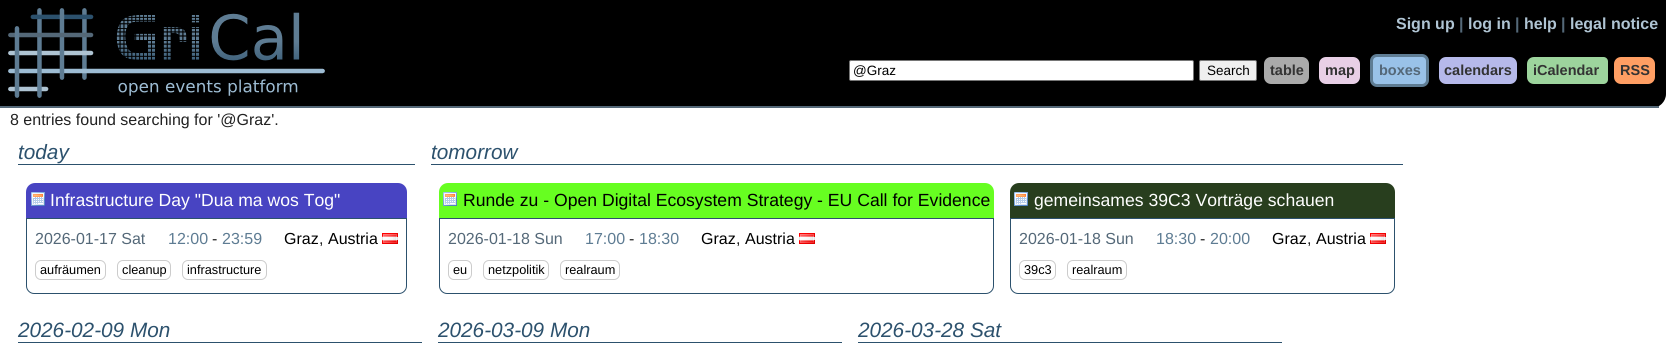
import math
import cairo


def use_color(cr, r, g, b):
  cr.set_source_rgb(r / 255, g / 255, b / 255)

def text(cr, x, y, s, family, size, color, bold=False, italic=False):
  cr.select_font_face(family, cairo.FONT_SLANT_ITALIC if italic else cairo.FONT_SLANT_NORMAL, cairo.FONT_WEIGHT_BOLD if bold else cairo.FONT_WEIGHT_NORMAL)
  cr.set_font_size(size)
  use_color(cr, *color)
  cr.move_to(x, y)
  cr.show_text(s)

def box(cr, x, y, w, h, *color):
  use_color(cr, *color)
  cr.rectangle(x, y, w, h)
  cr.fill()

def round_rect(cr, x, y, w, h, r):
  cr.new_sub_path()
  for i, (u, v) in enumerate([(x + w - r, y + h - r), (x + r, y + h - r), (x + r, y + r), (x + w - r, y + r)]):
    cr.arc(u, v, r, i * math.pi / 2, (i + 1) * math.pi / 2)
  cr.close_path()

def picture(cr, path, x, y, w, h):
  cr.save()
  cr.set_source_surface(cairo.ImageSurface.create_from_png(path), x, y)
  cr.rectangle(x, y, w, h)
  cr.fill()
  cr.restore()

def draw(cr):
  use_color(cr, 255, 255, 255)
  cr.paint()
  use_color(cr, 0, 0, 0)
  cr.new_path()
  cr.move_to(0, 0)
  cr.line_to(1666, 0)
  cr.line_to(1666, 94)
  cr.curve_to(1666, 101.5, 1659.5, 108, 1652, 108)
  cr.line_to(0, 108)
  cr.close_path()
  cr.fill()
  box(cr, 0, 106, 1659, 2, 84, 104, 120)
  picture(cr, "img_01.png", 8, 8, 317, 90)
  use_color(cr, 255, 255, 255)
  round_rect(cr, 849.5, 60.5, 344, 20, 1.5)
  cr.fill_preserve()
  use_color(cr, 118, 118, 118)
  cr.set_line_width(1)
  cr.stroke()
  use_color(cr, 239, 239, 239)
  round_rect(cr, 1199.5, 60.5, 57, 20, 1.5)
  cr.fill_preserve()
  use_color(cr, 118, 118, 118)
  cr.stroke()
  use_color(cr, 170, 170, 170)
  round_rect(cr, 1264, 57, 45, 27, 7)
  cr.fill()
  use_color(cr, 232, 207, 230)
  round_rect(cr, 1319, 57, 41, 27, 7)
  cr.fill()
  use_color(cr, 153, 194, 232)
  round_rect(cr, 1371.5, 55.5, 56, 30, 5.5)
  cr.fill_preserve()
  use_color(cr, 94, 124, 147)
  cr.set_line_width(3)
  cr.stroke()
  use_color(cr, 182, 185, 234)
  round_rect(cr, 1439, 57, 78, 27, 7)
  cr.fill()
  use_color(cr, 157, 212, 157)
  cr.new_path()
  cr.move_to(1534, 57)
  cr.line_to(1599, 57)
  cr.line_to(1599, 84)
  cr.line_to(1534, 84)
  cr.curve_to(1530, 84, 1527, 81, 1527, 77)
  cr.line_to(1527, 64)
  cr.curve_to(1527, 60, 1530, 57, 1534, 57)
  cr.close_path()
  cr.fill()
  cr.new_path()
  cr.move_to(1599, 57)
  cr.line_to(1603.5, 57)
  cr.curve_to(1606, 57, 1608, 59, 1608, 61.5)
  cr.line_to(1608, 79.5)
  cr.curve_to(1608, 82, 1606, 84, 1603.5, 84)
  cr.line_to(1599, 84)
  cr.close_path()
  cr.fill()
  use_color(cr, 255, 158, 99)
  round_rect(cr, 1614, 57, 41, 27, 7)
  cr.fill()
  box(cr, 18, 164, 397, 1, 44, 81, 109)
  use_color(cr, 72, 68, 194)
  cr.new_path()
  cr.move_to(35, 183)
  cr.line_to(398, 183)
  cr.curve_to(403, 183, 407, 187, 407, 192)
  cr.line_to(407, 218)
  cr.line_to(26, 218)
  cr.line_to(26, 192)
  cr.curve_to(26, 187, 30, 183, 35, 183)
  cr.close_path()
  cr.fill()
  picture(cr, "img_02.png", 31, 192, 14, 14)
  cr.new_path()
  cr.move_to(26.5, 218.5)
  cr.line_to(406.5, 218.5)
  cr.line_to(406.5, 286)
  cr.curve_to(406.5, 290, 403, 293.5, 399, 293.5)
  cr.line_to(34, 293.5)
  cr.curve_to(30, 293.5, 26.5, 290, 26.5, 286)
  cr.close_path()
  use_color(cr, 44, 81, 109)
  cr.set_line_width(1)
  cr.stroke()
  picture(cr, "img_03.png", 382, 233, 16, 11)
  round_rect(cr, 35.5, 260.5, 70, 19, 5.5)
  use_color(cr, 204, 204, 204)
  cr.stroke()
  round_rect(cr, 117.5, 260.5, 53, 19, 5.5)
  cr.stroke()
  round_rect(cr, 182.5, 260.5, 84, 19, 5.5)
  cr.stroke()
  box(cr, 431, 164, 972, 1, 44, 81, 109)
  use_color(cr, 103, 254, 33)
  cr.new_path()
  cr.move_to(448, 183)
  cr.line_to(985, 183)
  cr.curve_to(990, 183, 994, 187, 994, 192)
  cr.line_to(994, 218)
  cr.line_to(439, 218)
  cr.line_to(439, 192)
  cr.curve_to(439, 187, 443, 183, 448, 183)
  cr.close_path()
  cr.fill()
  picture(cr, "img_04.png", 443, 192, 14, 14)
  cr.new_path()
  cr.move_to(439.5, 218.5)
  cr.line_to(993.5, 218.5)
  cr.line_to(993.5, 286)
  cr.curve_to(993.5, 290, 990, 293.5, 986, 293.5)
  cr.line_to(447, 293.5)
  cr.curve_to(443, 293.5, 439.5, 290, 439.5, 286)
  cr.close_path()
  use_color(cr, 44, 81, 109)
  cr.stroke()
  picture(cr, "img_03.png", 799, 233, 16, 11)
  round_rect(cr, 448.5, 260.5, 23, 19, 5.5)
  use_color(cr, 204, 204, 204)
  cr.stroke()
  round_rect(cr, 483.5, 260.5, 65, 19, 5.5)
  cr.stroke()
  round_rect(cr, 560.5, 260.5, 59, 19, 5.5)
  cr.stroke()
  use_color(cr, 40, 62, 30)
  cr.new_path()
  cr.move_to(1019, 183)
  cr.line_to(1386, 183)
  cr.curve_to(1391, 183, 1395, 187, 1395, 192)
  cr.line_to(1395, 218)
  cr.line_to(1010, 218)
  cr.line_to(1010, 192)
  cr.curve_to(1010, 187, 1014, 183, 1019, 183)
  cr.close_path()
  cr.fill()
  picture(cr, "img_05.png", 1014, 192, 14, 14)
  cr.new_path()
  cr.move_to(1010.5, 218.5)
  cr.line_to(1394.5, 218.5)
  cr.line_to(1394.5, 286)
  cr.curve_to(1394.5, 290, 1391, 293.5, 1387, 293.5)
  cr.line_to(1018, 293.5)
  cr.curve_to(1014, 293.5, 1010.5, 290, 1010.5, 286)
  cr.close_path()
  use_color(cr, 44, 81, 109)
  cr.stroke()
  picture(cr, "img_03.png", 1370, 233, 16, 11)
  round_rect(cr, 1019.5, 260.5, 36, 19, 5.5)
  use_color(cr, 204, 204, 204)
  cr.stroke()
  round_rect(cr, 1067.5, 260.5, 59, 19, 5.5)
  cr.stroke()
  box(cr, 18, 342, 404, 1, 44, 81, 109)
  box(cr, 438, 342, 404, 1, 44, 81, 109)
  box(cr, 858, 342, 424, 1, 44, 81, 109)
  text(cr, 1396, 29, "Sign up", "Liberation Sans", 16, (175, 196, 211), bold=True)
  text(cr, 1459, 29, "|", "Liberation Sans", 16, (84, 104, 120), bold=True)
  text(cr, 1468, 29, "log in", "Liberation Sans", 16, (175, 196, 211), bold=True)
  text(cr, 1515, 29, "|", "Liberation Sans", 16, (84, 104, 120), bold=True)
  text(cr, 1524, 29, "help", "Liberation Sans", 16, (175, 196, 211), bold=True)
  text(cr, 1561, 29, "|", "Liberation Sans", 16, (84, 104, 120), bold=True)
  text(cr, 1570, 29, "legal notice", "Liberation Sans", 16, (175, 196, 211), bold=True)
  text(cr, 853, 75, "@Graz", "Liberation Sans", 13.5, (0, 0, 0))
  text(cr, 1207, 75, "Search", "Liberation Sans", 13.5, (0, 0, 0))
  text(cr, 1270, 75, "table", "Liberation Sans", 14.5, (51, 51, 51), bold=True)
  text(cr, 1325, 75, "map", "Liberation Sans", 14.5, (51, 51, 51), bold=True)
  text(cr, 1379, 75, "boxes", "Liberation Sans", 14.5, (84, 104, 120), bold=True)
  text(cr, 1444, 75, "calendars", "Liberation Sans", 14.5, (51, 51, 51), bold=True)
  text(cr, 1533, 75, "iCalendar", "Liberation Sans", 14.5, (51, 51, 51), bold=True)
  text(cr, 1620, 75, "RSS", "Liberation Sans", 14.5, (51, 51, 51), bold=True)
  text(cr, 10, 125, "8 entries found searching for '@Graz'.", "Liberation Sans", 16, (34, 34, 34))
  text(cr, 18, 159, "today", "Liberation Sans", 20.75, (44, 81, 109), italic=True)
  text(cr, 50, 206, "Infrastructure Day \"Dua ma wos Tog\"", "Liberation Sans", 17.6, (255, 255, 255))
  text(cr, 35, 244, "2026-01-17 Sat", "Liberation Sans", 16, (84, 104, 120))
  text(cr, 168, 244, "12:00", "Liberation Sans", 16, (94, 124, 147))
  text(cr, 212, 244, "-", "Liberation Sans", 16, (34, 34, 34))
  text(cr, 222, 244, "23:59", "Liberation Sans", 16, (94, 124, 147))
  text(cr, 284, 244, "Graz", "Liberation Sans", 16, (0, 0, 0))
  text(cr, 328, 244, "Austria", "Liberation Sans", 16, (0, 0, 0))
  text(cr, 319, 244, ",", "Liberation Sans", 16, (34, 34, 34))
  text(cr, 40, 274, "aufräumen", "Liberation Sans", 12.75, (0, 0, 0))
  text(cr, 122, 274, "cleanup", "Liberation Sans", 12.75, (0, 0, 0))
  text(cr, 187, 274, "infrastructure", "Liberation Sans", 12.75, (0, 0, 0))
  text(cr, 431, 159, "tomorrow", "Liberation Sans", 20.75, (44, 81, 109), italic=True)
  text(cr, 463, 206, "Runde zu - Open Digital Ecosystem Strategy - EU Call for Evidence", "Liberation Sans", 17.6, (0, 0, 0))
  text(cr, 448, 244, "2026-01-18 Sun", "Liberation Sans", 16, (84, 104, 120))
  text(cr, 585, 244, "17:00", "Liberation Sans", 16, (94, 124, 147))
  text(cr, 629, 244, "-", "Liberation Sans", 16, (34, 34, 34))
  text(cr, 639, 244, "18:30", "Liberation Sans", 16, (94, 124, 147))
  text(cr, 701, 244, "Graz", "Liberation Sans", 16, (0, 0, 0))
  text(cr, 745, 244, "Austria", "Liberation Sans", 16, (0, 0, 0))
  text(cr, 736, 244, ",", "Liberation Sans", 16, (34, 34, 34))
  text(cr, 453, 274, "eu", "Liberation Sans", 12.75, (0, 0, 0))
  text(cr, 488, 274, "netzpolitik", "Liberation Sans", 12.75, (0, 0, 0))
  text(cr, 565, 274, "realraum", "Liberation Sans", 12.75, (0, 0, 0))
  text(cr, 1034, 206, "gemeinsames 39C3 Vorträge schauen", "Liberation Sans", 17.6, (255, 255, 255))
  text(cr, 1019, 244, "2026-01-18 Sun", "Liberation Sans", 16, (84, 104, 120))
  text(cr, 1156, 244, "18:30", "Liberation Sans", 16, (94, 124, 147))
  text(cr, 1200, 244, "-", "Liberation Sans", 16, (34, 34, 34))
  text(cr, 1210, 244, "20:00", "Liberation Sans", 16, (94, 124, 147))
  text(cr, 1272, 244, "Graz", "Liberation Sans", 16, (0, 0, 0))
  text(cr, 1316, 244, "Austria", "Liberation Sans", 16, (0, 0, 0))
  text(cr, 1307, 244, ",", "Liberation Sans", 16, (34, 34, 34))
  text(cr, 1024, 274, "39c3", "Liberation Sans", 12.75, (0, 0, 0))
  text(cr, 1072, 274, "realraum", "Liberation Sans", 12.75, (0, 0, 0))
  text(cr, 18, 337, "2026-02-09 Mon", "Liberation Sans", 20.75, (44, 81, 109), italic=True)
  text(cr, 438, 337, "2026-03-09 Mon", "Liberation Sans", 20.75, (44, 81, 109), italic=True)
  text(cr, 858, 337, "2026-03-28 Sat", "Liberation Sans", 20.75, (44, 81, 109), italic=True)


surface = cairo.ImageSurface(cairo.FORMAT_RGB24, 1666, 343)
cr = cairo.Context(surface)
options = cairo.FontOptions()
options.set_hint_metrics(cairo.HINT_METRICS_OFF)
options.set_hint_style(cairo.HINT_STYLE_NONE)
cr.set_font_options(options)
cr.set_miter_limit(4)
draw(cr)
surface.write_to_png("out.png")
